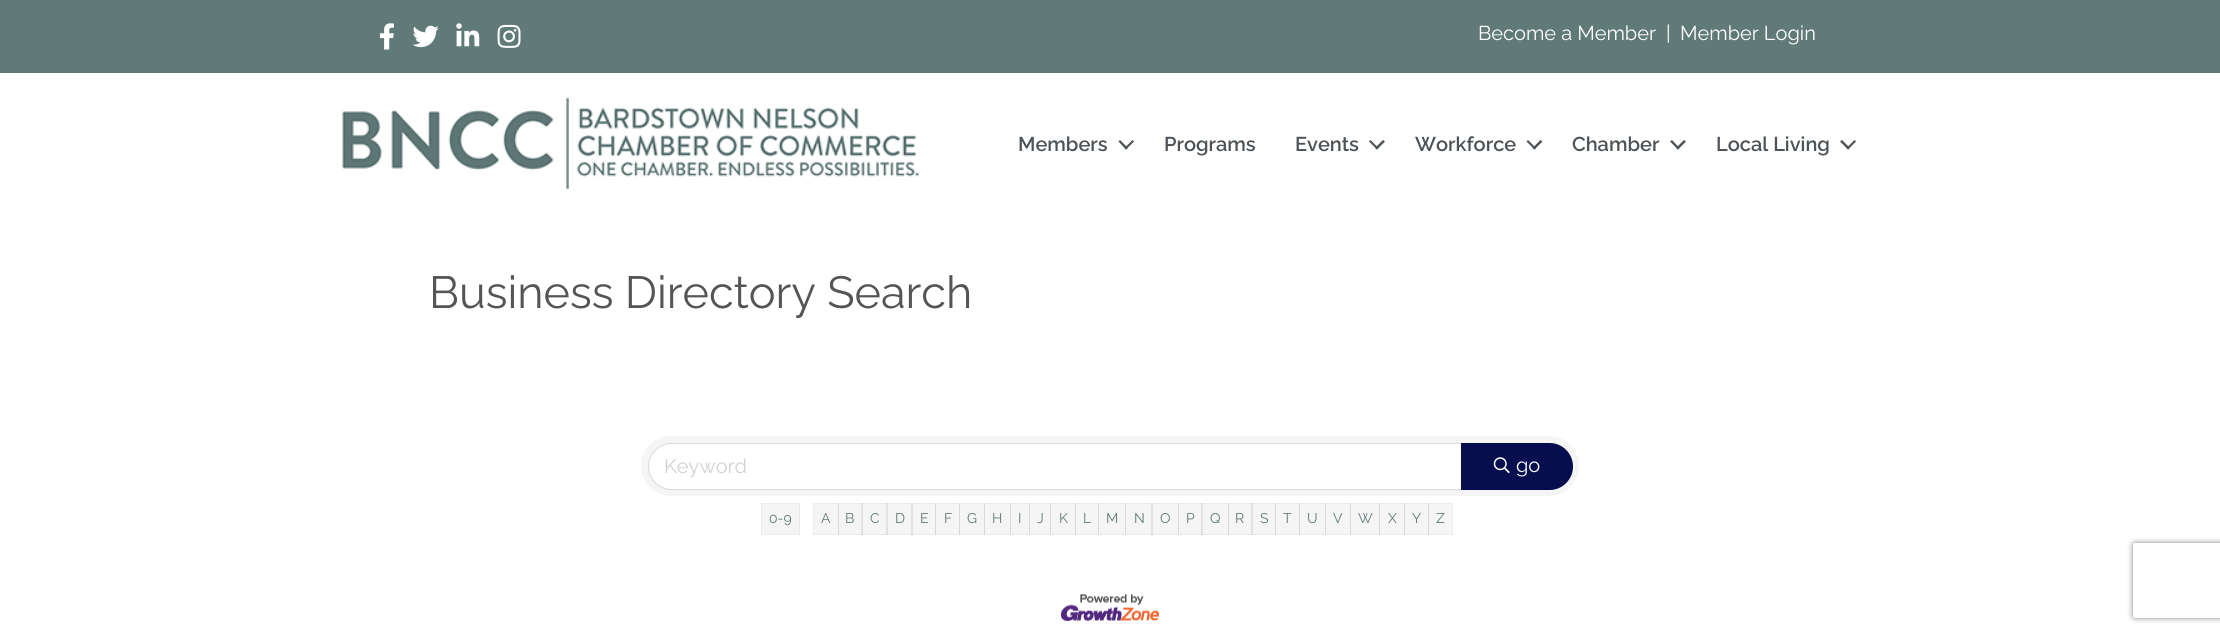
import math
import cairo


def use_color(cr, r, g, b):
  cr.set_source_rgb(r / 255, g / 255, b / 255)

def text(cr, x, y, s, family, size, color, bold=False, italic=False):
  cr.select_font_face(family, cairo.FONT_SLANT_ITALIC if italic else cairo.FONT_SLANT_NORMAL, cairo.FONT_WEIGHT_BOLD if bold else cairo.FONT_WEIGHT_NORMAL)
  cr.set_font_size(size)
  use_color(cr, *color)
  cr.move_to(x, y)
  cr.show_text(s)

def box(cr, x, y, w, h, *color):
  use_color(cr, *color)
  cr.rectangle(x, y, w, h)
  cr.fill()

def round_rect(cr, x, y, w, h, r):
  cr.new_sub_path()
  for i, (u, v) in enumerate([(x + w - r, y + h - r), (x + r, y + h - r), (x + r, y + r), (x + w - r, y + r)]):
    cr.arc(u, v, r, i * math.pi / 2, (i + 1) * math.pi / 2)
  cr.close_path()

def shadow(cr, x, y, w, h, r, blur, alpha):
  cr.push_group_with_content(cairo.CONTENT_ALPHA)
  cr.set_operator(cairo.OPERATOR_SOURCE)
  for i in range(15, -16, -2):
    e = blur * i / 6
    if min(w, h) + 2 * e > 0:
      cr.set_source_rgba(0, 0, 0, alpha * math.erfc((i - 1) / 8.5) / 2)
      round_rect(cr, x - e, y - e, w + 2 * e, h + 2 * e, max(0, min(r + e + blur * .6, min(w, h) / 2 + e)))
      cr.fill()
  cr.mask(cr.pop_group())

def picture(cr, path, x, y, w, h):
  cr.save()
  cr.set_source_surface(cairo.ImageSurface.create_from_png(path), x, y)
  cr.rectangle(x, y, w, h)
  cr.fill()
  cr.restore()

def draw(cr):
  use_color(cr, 255, 255, 255)
  cr.paint()
  box(cr, 0, 0, 2220, 73, 96, 122, 120)
  picture(cr, "img_01.png", 379, 23, 15, 27)
  picture(cr, "img_02.png", 412, 25, 27, 23)
  picture(cr, "img_03.png", 456, 23, 24, 24)
  picture(cr, "img_04.png", 497, 24, 24, 24)
  picture(cr, "img_05.png", 342, 97, 577, 93)
  use_color(cr, 76, 82, 86)
  cr.new_path()
  cr.move_to(1132.5, 140)
  cr.line_to(1134, 141.5)
  cr.line_to(1126, 149.5)
  cr.line_to(1124.5, 148)
  cr.close_path()
  cr.fill()
  cr.new_path()
  cr.move_to(1120, 140)
  cr.line_to(1128, 148)
  cr.line_to(1126, 149.5)
  cr.line_to(1118.5, 141.5)
  cr.close_path()
  cr.fill()
  cr.new_path()
  cr.move_to(1383, 140)
  cr.line_to(1385, 141.5)
  cr.line_to(1377, 149.5)
  cr.line_to(1375, 148)
  cr.close_path()
  cr.fill()
  cr.new_path()
  cr.move_to(1370.5, 140)
  cr.line_to(1378.5, 148)
  cr.line_to(1377, 149.5)
  cr.line_to(1369, 141.5)
  cr.close_path()
  cr.fill()
  cr.new_path()
  cr.move_to(1540.5, 140)
  cr.line_to(1542.5, 141.5)
  cr.line_to(1534.5, 149.5)
  cr.line_to(1532.5, 148)
  cr.close_path()
  cr.fill()
  cr.new_path()
  cr.move_to(1528, 140)
  cr.line_to(1536, 148)
  cr.line_to(1534.5, 149.5)
  cr.line_to(1526.5, 141.5)
  cr.close_path()
  cr.fill()
  cr.new_path()
  cr.move_to(1684, 140)
  cr.line_to(1686, 141.5)
  cr.line_to(1678, 149.5)
  cr.line_to(1676, 148)
  cr.close_path()
  cr.fill()
  cr.new_path()
  cr.move_to(1672, 140)
  cr.line_to(1679.5, 148)
  cr.line_to(1678, 149.5)
  cr.line_to(1670, 141.5)
  cr.close_path()
  cr.fill()
  cr.new_path()
  cr.move_to(1854.5, 140)
  cr.line_to(1856, 141.5)
  cr.line_to(1848, 149.5)
  cr.line_to(1846.5, 148)
  cr.close_path()
  cr.fill()
  cr.new_path()
  cr.move_to(1842, 140)
  cr.line_to(1850, 148)
  cr.line_to(1848, 149.5)
  cr.line_to(1840, 141.5)
  cr.close_path()
  cr.fill()
  use_color(cr, 245, 245, 245)
  round_rect(cr, 641, 436, 938, 60, 30)
  cr.fill()
  use_color(cr, 255, 255, 255)
  cr.new_path()
  cr.move_to(671.5, 444)
  cr.line_to(1461, 444)
  cr.line_to(1461, 489)
  cr.line_to(671.5, 489)
  cr.curve_to(659, 489, 649, 479, 649, 466.5)
  cr.curve_to(649, 454, 659, 444, 671.5, 444)
  cr.close_path()
  cr.fill()
  cr.new_path()
  cr.move_to(671.5, 443.5)
  cr.line_to(1462.5, 443.5)
  cr.line_to(1462.5, 489.5)
  cr.line_to(671.5, 489.5)
  cr.curve_to(659, 489.5, 648.5, 479, 648.5, 466.5)
  cr.curve_to(648.5, 454, 659, 443.5, 671.5, 443.5)
  cr.close_path()
  cr.set_source_rgba(0, 0, 0, 0.12)
  cr.set_line_width(1)
  cr.stroke()
  use_color(cr, 6, 14, 80)
  cr.new_path()
  cr.move_to(1461, 443)
  cr.line_to(1549.5, 443)
  cr.curve_to(1562.5, 443, 1573, 453.5, 1573, 466.5)
  cr.curve_to(1573, 479.5, 1562.5, 490, 1549.5, 490)
  cr.line_to(1461, 490)
  cr.close_path()
  cr.fill()
  cr.new_path()
  cr.move_to(1461.5, 443.5)
  cr.line_to(1549.5, 443.5)
  cr.curve_to(1562, 443.5, 1572.5, 454, 1572.5, 466.5)
  cr.curve_to(1572.5, 479, 1562, 489.5, 1549.5, 489.5)
  cr.line_to(1461.5, 489.5)
  cr.close_path()
  cr.set_source_rgba(0, 0, 0, 0.12)
  cr.stroke()
  picture(cr, "img_06.png", 1493, 457, 17, 17)
  use_color(cr, 245, 245, 245)
  cr.rectangle(761.5, 503.5, 38, 31)
  cr.fill_preserve()
  use_color(cr, 235, 235, 235)
  cr.stroke()
  use_color(cr, 245, 245, 245)
  cr.rectangle(813.5, 503.5, 25, 31)
  cr.fill_preserve()
  use_color(cr, 235, 235, 235)
  cr.stroke()
  cr.set_source_rgba(0, 0, 0, 0.04)
  cr.rectangle(838, 503, 25, 32)
  cr.fill()
  cr.rectangle(838.5, 503.5, 24, 31)
  cr.stroke()
  cr.rectangle(861, 503, 27, 32)
  cr.fill()
  cr.rectangle(861.5, 503.5, 26, 31)
  cr.stroke()
  cr.rectangle(886, 503, 27, 32)
  cr.fill()
  cr.rectangle(886.5, 503.5, 26, 31)
  cr.stroke()
  cr.rectangle(911, 503, 25, 32)
  cr.fill()
  cr.rectangle(911.5, 503.5, 24, 31)
  cr.stroke()
  cr.rectangle(935, 503, 25, 32)
  cr.fill()
  cr.rectangle(935.5, 503.5, 24, 31)
  cr.stroke()
  cr.rectangle(959, 503, 26, 32)
  cr.fill()
  cr.rectangle(959.5, 503.5, 25, 31)
  cr.stroke()
  cr.rectangle(984, 503, 27, 32)
  cr.fill()
  cr.rectangle(984.5, 503.5, 26, 31)
  cr.stroke()
  cr.rectangle(1010, 503, 20, 32)
  cr.fill()
  cr.rectangle(1010.5, 503.5, 19, 31)
  cr.stroke()
  cr.rectangle(1029, 503, 22, 32)
  cr.fill()
  cr.rectangle(1029.5, 503.5, 21, 31)
  cr.stroke()
  cr.rectangle(1050, 503, 26, 32)
  cr.fill()
  cr.rectangle(1050.5, 503.5, 25, 31)
  cr.stroke()
  cr.rectangle(1075, 503, 24, 32)
  cr.fill()
  cr.rectangle(1075.5, 503.5, 23, 31)
  cr.stroke()
  cr.rectangle(1098, 503, 28, 32)
  cr.fill()
  cr.rectangle(1098.5, 503.5, 27, 31)
  cr.stroke()
  cr.rectangle(1125, 503, 28, 32)
  cr.fill()
  cr.rectangle(1125.5, 503.5, 27, 31)
  cr.stroke()
  cr.rectangle(1151, 503, 28, 32)
  cr.fill()
  cr.rectangle(1151.5, 503.5, 27, 31)
  cr.stroke()
  cr.rectangle(1178, 503, 25, 32)
  cr.fill()
  cr.rectangle(1178.5, 503.5, 24, 31)
  cr.stroke()
  cr.rectangle(1201, 503, 28, 32)
  cr.fill()
  cr.rectangle(1201.5, 503.5, 27, 31)
  cr.stroke()
  cr.rectangle(1228, 503, 25, 32)
  cr.fill()
  cr.rectangle(1228.5, 503.5, 24, 31)
  cr.stroke()
  cr.rectangle(1251, 503, 25, 32)
  cr.fill()
  cr.rectangle(1251.5, 503.5, 24, 31)
  cr.stroke()
  cr.rectangle(1275, 503, 25, 32)
  cr.fill()
  cr.rectangle(1275.5, 503.5, 24, 31)
  cr.stroke()
  cr.rectangle(1299, 503, 27, 32)
  cr.fill()
  cr.rectangle(1299.5, 503.5, 26, 31)
  cr.stroke()
  cr.rectangle(1325, 503, 26, 32)
  cr.fill()
  cr.rectangle(1325.5, 503.5, 25, 31)
  cr.stroke()
  cr.rectangle(1350, 503, 30, 32)
  cr.fill()
  cr.rectangle(1350.5, 503.5, 29, 31)
  cr.stroke()
  cr.rectangle(1379, 503, 26, 32)
  cr.fill()
  cr.rectangle(1379.5, 503.5, 25, 31)
  cr.stroke()
  cr.rectangle(1404, 503, 25, 32)
  cr.fill()
  cr.rectangle(1404.5, 503.5, 24, 31)
  cr.stroke()
  cr.rectangle(1428, 503, 25, 32)
  cr.fill()
  cr.rectangle(1428.5, 503.5, 24, 31)
  cr.stroke()
  picture(cr, "img_07.png", 1061, 594, 98, 27)
  cr.save()
  cr.set_fill_rule(cairo.FILL_RULE_EVEN_ODD)
  cr.new_path()
  cr.move_to(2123, 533)
  cr.line_to(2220, 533)
  cr.line_to(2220, 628)
  cr.line_to(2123, 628)
  cr.close_path()
  cr.move_to(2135.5, 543)
  cr.line_to(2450.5, 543)
  cr.curve_to(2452, 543, 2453, 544, 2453, 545.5)
  cr.line_to(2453, 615.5)
  cr.curve_to(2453, 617, 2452, 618, 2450.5, 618)
  cr.line_to(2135.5, 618)
  cr.curve_to(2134, 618, 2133, 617, 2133, 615.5)
  cr.line_to(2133, 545.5)
  cr.curve_to(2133, 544, 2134, 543, 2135.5, 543)
  cr.close_path()
  cr.clip()
  use_color(cr, 128, 128, 128)
  shadow(cr, 2133, 543, 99, 75, 2.5, 3, 1)
  cr.restore()
  text(cr, 1478, 40, "Become a Member", "Raleway", 20, (255, 255, 255))
  text(cr, 1666, 40, "|", "Raleway", 20, (255, 255, 255))
  text(cr, 1680, 40, "Member Login", "Raleway", 20, (255, 255, 255))
  text(cr, 1018, 151, "Members", "Raleway SemiBold", 20, (76, 82, 86))
  text(cr, 1164, 151, "Programs", "Raleway SemiBold", 20, (76, 82, 86))
  text(cr, 1295, 151, "Events", "Raleway SemiBold", 20, (76, 82, 86))
  text(cr, 1415, 151, "Workforce", "Raleway SemiBold", 20, (76, 82, 86))
  text(cr, 1572, 151, "Chamber", "Raleway SemiBold", 20, (76, 82, 86))
  text(cr, 1716, 151, "Local Living", "Raleway SemiBold", 20, (76, 82, 86))
  text(cr, 429, 308, "Business Directory Search", "Raleway", 45, (85, 85, 85))
  text(cr, 664, 473, "Keyword", "Raleway", 20, (210, 210, 210))
  text(cr, 1516, 472, "go", "Raleway", 20, (255, 255, 255))
  text(cr, 769, 523, "0-9", "Raleway", 14, (96, 122, 120))
  text(cr, 821, 523, "A", "Raleway", 14, (96, 122, 120))
  text(cr, 845, 523, "B", "Raleway", 14, (96, 122, 120))
  text(cr, 870, 523, "C", "Raleway", 14, (96, 122, 120))
  text(cr, 895, 523, "D", "Raleway", 14, (96, 122, 120))
  text(cr, 920, 523, "E", "Raleway", 14, (96, 122, 120))
  text(cr, 944, 523, "F", "Raleway", 14, (96, 122, 120))
  text(cr, 967, 523, "G", "Raleway", 14, (96, 122, 120))
  text(cr, 992, 523, "H", "Raleway", 14, (96, 122, 120))
  text(cr, 1018, 523, "I", "Raleway", 14, (96, 122, 120))
  text(cr, 1037, 523, "J", "Raleway", 14, (96, 122, 120))
  text(cr, 1059, 523, "K", "Raleway", 14, (96, 122, 120))
  text(cr, 1083, 523, "L", "Raleway", 14, (96, 122, 120))
  text(cr, 1106, 523, "M", "Raleway", 14, (96, 122, 120))
  text(cr, 1134, 523, "N", "Raleway", 14, (96, 122, 120))
  text(cr, 1160, 523, "O", "Raleway", 14, (96, 122, 120))
  text(cr, 1186, 523, "P", "Raleway", 14, (96, 122, 120))
  text(cr, 1210, 523, "Q", "Raleway", 14, (96, 122, 120))
  text(cr, 1235, 523, "R", "Raleway", 14, (96, 122, 120))
  text(cr, 1260, 523, "S", "Raleway", 14, (96, 122, 120))
  text(cr, 1283, 523, "T", "Raleway", 14, (96, 122, 120))
  text(cr, 1307, 523, "U", "Raleway", 14, (96, 122, 120))
  text(cr, 1333, 523, "V", "Raleway", 14, (96, 122, 120))
  text(cr, 1358, 523, "W", "Raleway", 14, (96, 122, 120))
  text(cr, 1388, 523, "X", "Raleway", 14, (96, 122, 120))
  text(cr, 1412, 523, "Y", "Raleway", 14, (96, 122, 120))
  text(cr, 1436, 523, "Z", "Raleway", 14, (96, 122, 120))


surface = cairo.ImageSurface(cairo.FORMAT_RGB24, 2220, 634)
cr = cairo.Context(surface)
options = cairo.FontOptions()
options.set_hint_metrics(cairo.HINT_METRICS_OFF)
options.set_hint_style(cairo.HINT_STYLE_NONE)
cr.set_font_options(options)
cr.set_miter_limit(4)
draw(cr)
surface.write_to_png("out.png")
